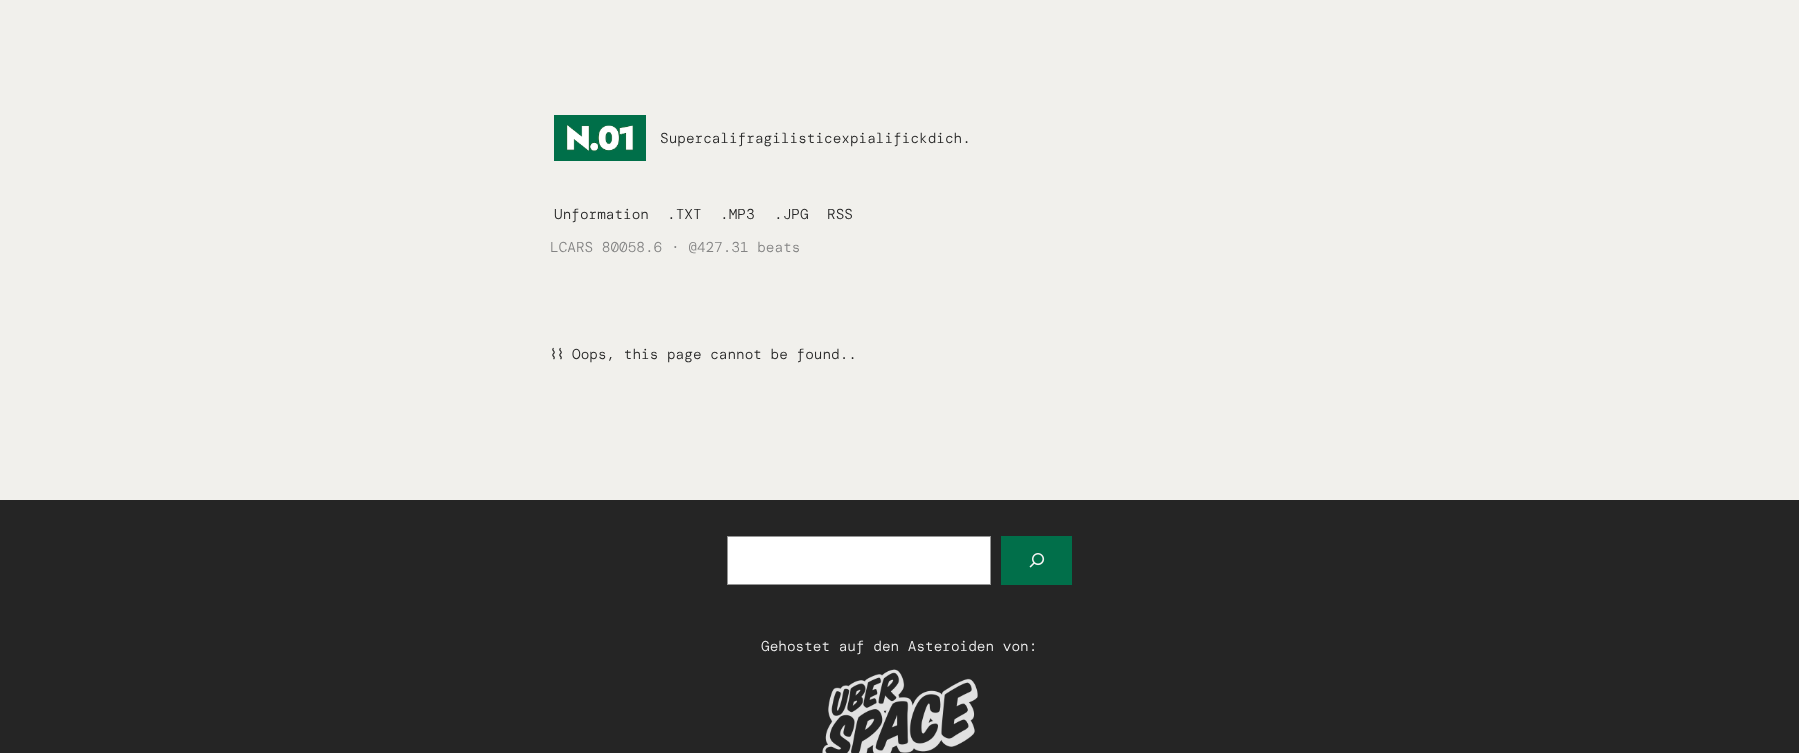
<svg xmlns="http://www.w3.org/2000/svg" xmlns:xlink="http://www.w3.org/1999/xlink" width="1799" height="753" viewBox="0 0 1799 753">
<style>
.cls-1{font:300 14.4px DM Mono;fill:#252525}
.cls-2{font:300 14.4px DM Mono;fill:#838383}
.cls-3{font:14.4px DejaVu Sans;fill:#252525}
.cls-4{font:300 14.4px DM Mono;fill:#f3f3f3}
</style>
<rect width="100%" height="100%" fill="#f1f0ec"/>
<image xlink:href="image0.png" x="554" y="115" width="92" height="46"/>
<rect fill="#252525" x="0" y="500" width="1799" height="253"/>
<rect fill="#ffffff" stroke="#949494" x="727.5" y="536.5" width="263" height="48"/>
<rect fill="#016f4a" x="1001" y="536" width="71" height="49"/>
<image xlink:href="image1.png" x="1029" y="553" width="16" height="15"/>
<image xlink:href="image2.png" x="822" y="669" width="156" height="84"/>
<text class="cls-1" x="660" y="143">Supercalifragilisticexpialifickdich.</text>
<text class="cls-1" x="554" y="219">Unformation</text>
<text class="cls-1" x="667" y="219">.TXT</text>
<text class="cls-1" x="720" y="219">.MP3</text>
<text class="cls-1" x="774" y="219">.JPG</text>
<text class="cls-1" x="827" y="219">RSS</text>
<text class="cls-2" x="550" y="252">LCARS 80058.6 · @427.31 beats</text>
<text class="cls-3" x="550" y="359">⌇⌇</text>
<text class="cls-1" x="572" y="359">Oops, this page cannot be found..</text>
<text class="cls-4" x="761" y="651">Gehostet auf den Asteroiden von:</text>
</svg>
